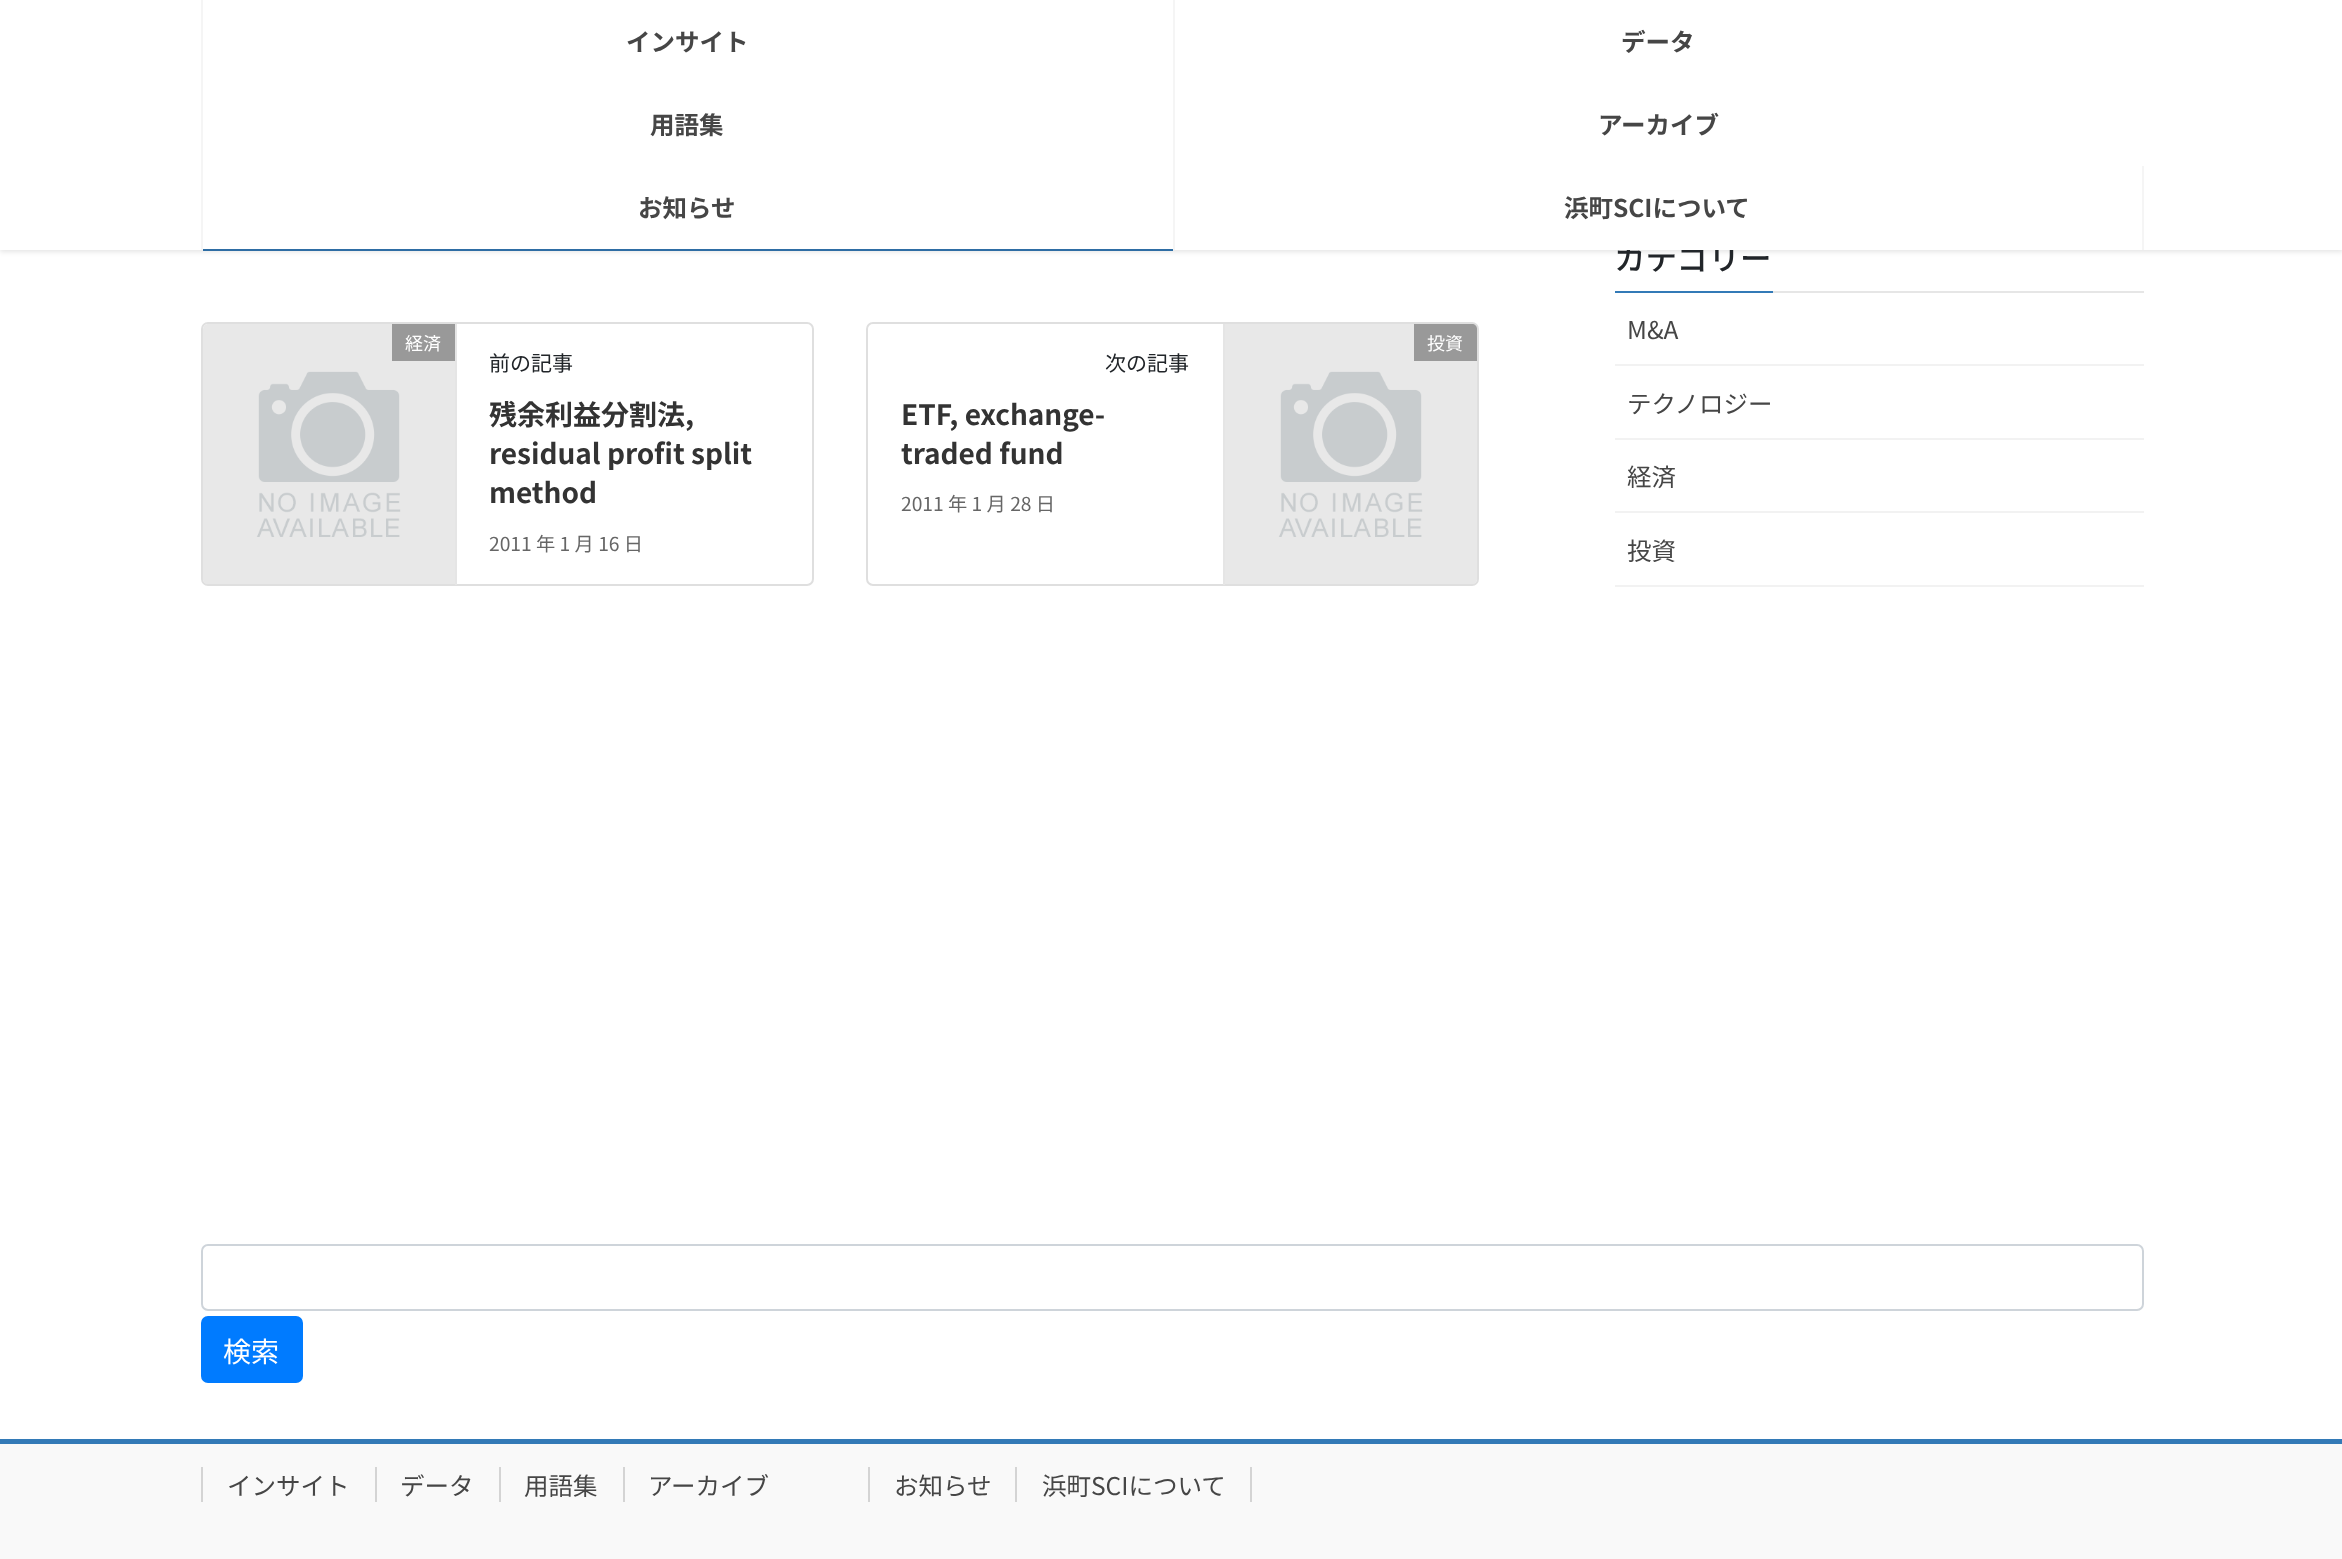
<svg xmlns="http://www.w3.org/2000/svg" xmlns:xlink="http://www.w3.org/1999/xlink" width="2342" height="1559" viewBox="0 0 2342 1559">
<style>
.cls-1{font:18px Noto Sans JP;fill:#ffffff}
.cls-2{font:21px Noto Sans JP;fill:#212529}
.cls-3{font:bold 28px Noto Sans JP;fill:#333333}
.cls-4{font:19.25px Noto Sans JP;fill:#666666}
.cls-5{font:500 31.5px Noto Sans JP;fill:#212529}
.cls-6{font:bold 24.5px Noto Sans JP;fill:#464646}
.cls-7{font:24.5px Noto Sans JP;fill:#464646}
.cls-8{font:28px Noto Sans JP;fill:#ffffff}
</style>
<rect width="100%" height="100%" fill="#ffffff"/>
<rect fill="#000000" fill-opacity="0.1" filter="blur(2.5px)" x="0" y="2" width="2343" height="250"/>
<rect fill="none" stroke="#dfdfdf" stroke-width="2" x="202" y="323" width="611" height="262" rx="6"/>
<image xlink:href="image0.png" x="203" y="324" width="252" height="260"/>
<rect fill="#e5e5e5" x="455" y="324" width="2" height="261"/>
<rect fill="#999999" x="392" y="324" width="63" height="37"/>
<rect fill="none" stroke="#dfdfdf" stroke-width="2" x="867" y="323" width="611" height="262" rx="6"/>
<image xlink:href="image1.png" x="1225" y="324" width="252" height="260"/>
<rect fill="#e5e5e5" x="1223" y="324" width="2" height="261"/>
<path fill="#999999" d="M1414 324H1472C1475 324 1477 326 1477 329V361H1414Z"/>
<rect fill="#e6e6e6" x="1773" y="291" width="371" height="2"/>
<rect fill="#337ab7" x="1615" y="291" width="158" height="2"/>
<rect fill="#f2f2f2" x="1615" y="364" width="529" height="2"/>
<rect fill="#f2f2f2" x="1615" y="438" width="529" height="2"/>
<rect fill="#f2f2f2" x="1615" y="511" width="529" height="2"/>
<rect fill="#f2f2f2" x="1615" y="585" width="529" height="2"/>
<rect fill="none" stroke="#ced4da" stroke-width="2" x="202" y="1245" width="1941" height="65" rx="6"/>
<rect fill="#007bff" stroke="#007bff" stroke-width="2" x="202" y="1317" width="100" height="65" rx="6"/>
<rect fill="#f9f9f9" x="0" y="1444" width="2342" height="115"/>
<rect fill="#337ab7" x="0" y="1439" width="2342" height="5"/>
<rect fill="#d4d4d4" x="201" y="1467" width="2" height="35"/>
<rect fill="#d4d4d4" x="375" y="1467" width="2" height="35"/>
<rect fill="#d4d4d4" x="499" y="1467" width="2" height="35"/>
<rect fill="#d4d4d4" x="623" y="1467" width="2" height="35"/>
<rect fill="#d4d4d4" x="868" y="1467" width="2" height="35"/>
<rect fill="#d4d4d4" x="1250" y="1467" width="2" height="35"/>
<rect fill="#d4d4d4" x="1015" y="1467" width="2" height="35"/>
<text class="cls-1" x="405" y="350">経済</text>
<text class="cls-2" x="489" y="371">前の記事</text>
<text class="cls-3"><tspan x="489" y="425">残余利益分割法,</tspan><tspan x="489" y="464">residual profit split</tspan><tspan x="489" y="503">method</tspan></text>
<text class="cls-4" x="489" y="551">2011 年 1 月 16 日</text>
<text class="cls-1" x="1427" y="350">投資</text>
<text class="cls-2" x="1105" y="371">次の記事</text>
<text class="cls-3"><tspan x="901" y="425">ETF, exchange-</tspan><tspan x="901" y="464">traded fund</tspan></text>
<text class="cls-4" x="901" y="511">2011 年 1 月 28 日</text>
<text class="cls-5" x="1614" y="270">カテゴリー</text>
<rect fill="#ffffff" x="0" y="0" width="2342" height="250"/>
<text class="cls-6" x="1564" y="217">浜町SCIについて</text>
<rect fill="#f5f5f5" x="2142" y="166" width="2" height="84"/>
<rect fill="#2e6da4" x="203" y="249" width="970" height="2"/>
<text class="cls-6" x="638" y="217">お知らせ</text>
<text class="cls-6" x="1598" y="134">アーカイブ</text>
<text class="cls-6" x="650" y="134">用語集</text>
<text class="cls-6" x="1621" y="51">データ</text>
<rect fill="#f5f5f5" x="1173" y="0" width="2" height="250"/>
<text class="cls-6" x="626" y="51">インサイト</text>
<rect fill="#f5f5f5" x="201" y="0" width="2" height="250"/>
<text class="cls-7" x="1627" y="339">M&amp;A</text>
<text class="cls-7" x="1627" y="413">テクノロジー</text>
<text class="cls-7" x="1627" y="486">経済</text>
<text class="cls-7" x="1627" y="560">投資</text>
<text class="cls-8" x="223" y="1362">検索</text>
<text class="cls-7" x="227" y="1495">インサイト</text>
<text class="cls-7" x="400" y="1495">データ</text>
<text class="cls-7" x="524" y="1495">用語集</text>
<text class="cls-7" x="648" y="1495">アーカイブ</text>
<text class="cls-7" x="894" y="1495">お知らせ</text>
<text class="cls-7" x="1042" y="1495">浜町SCIについて</text>
</svg>
